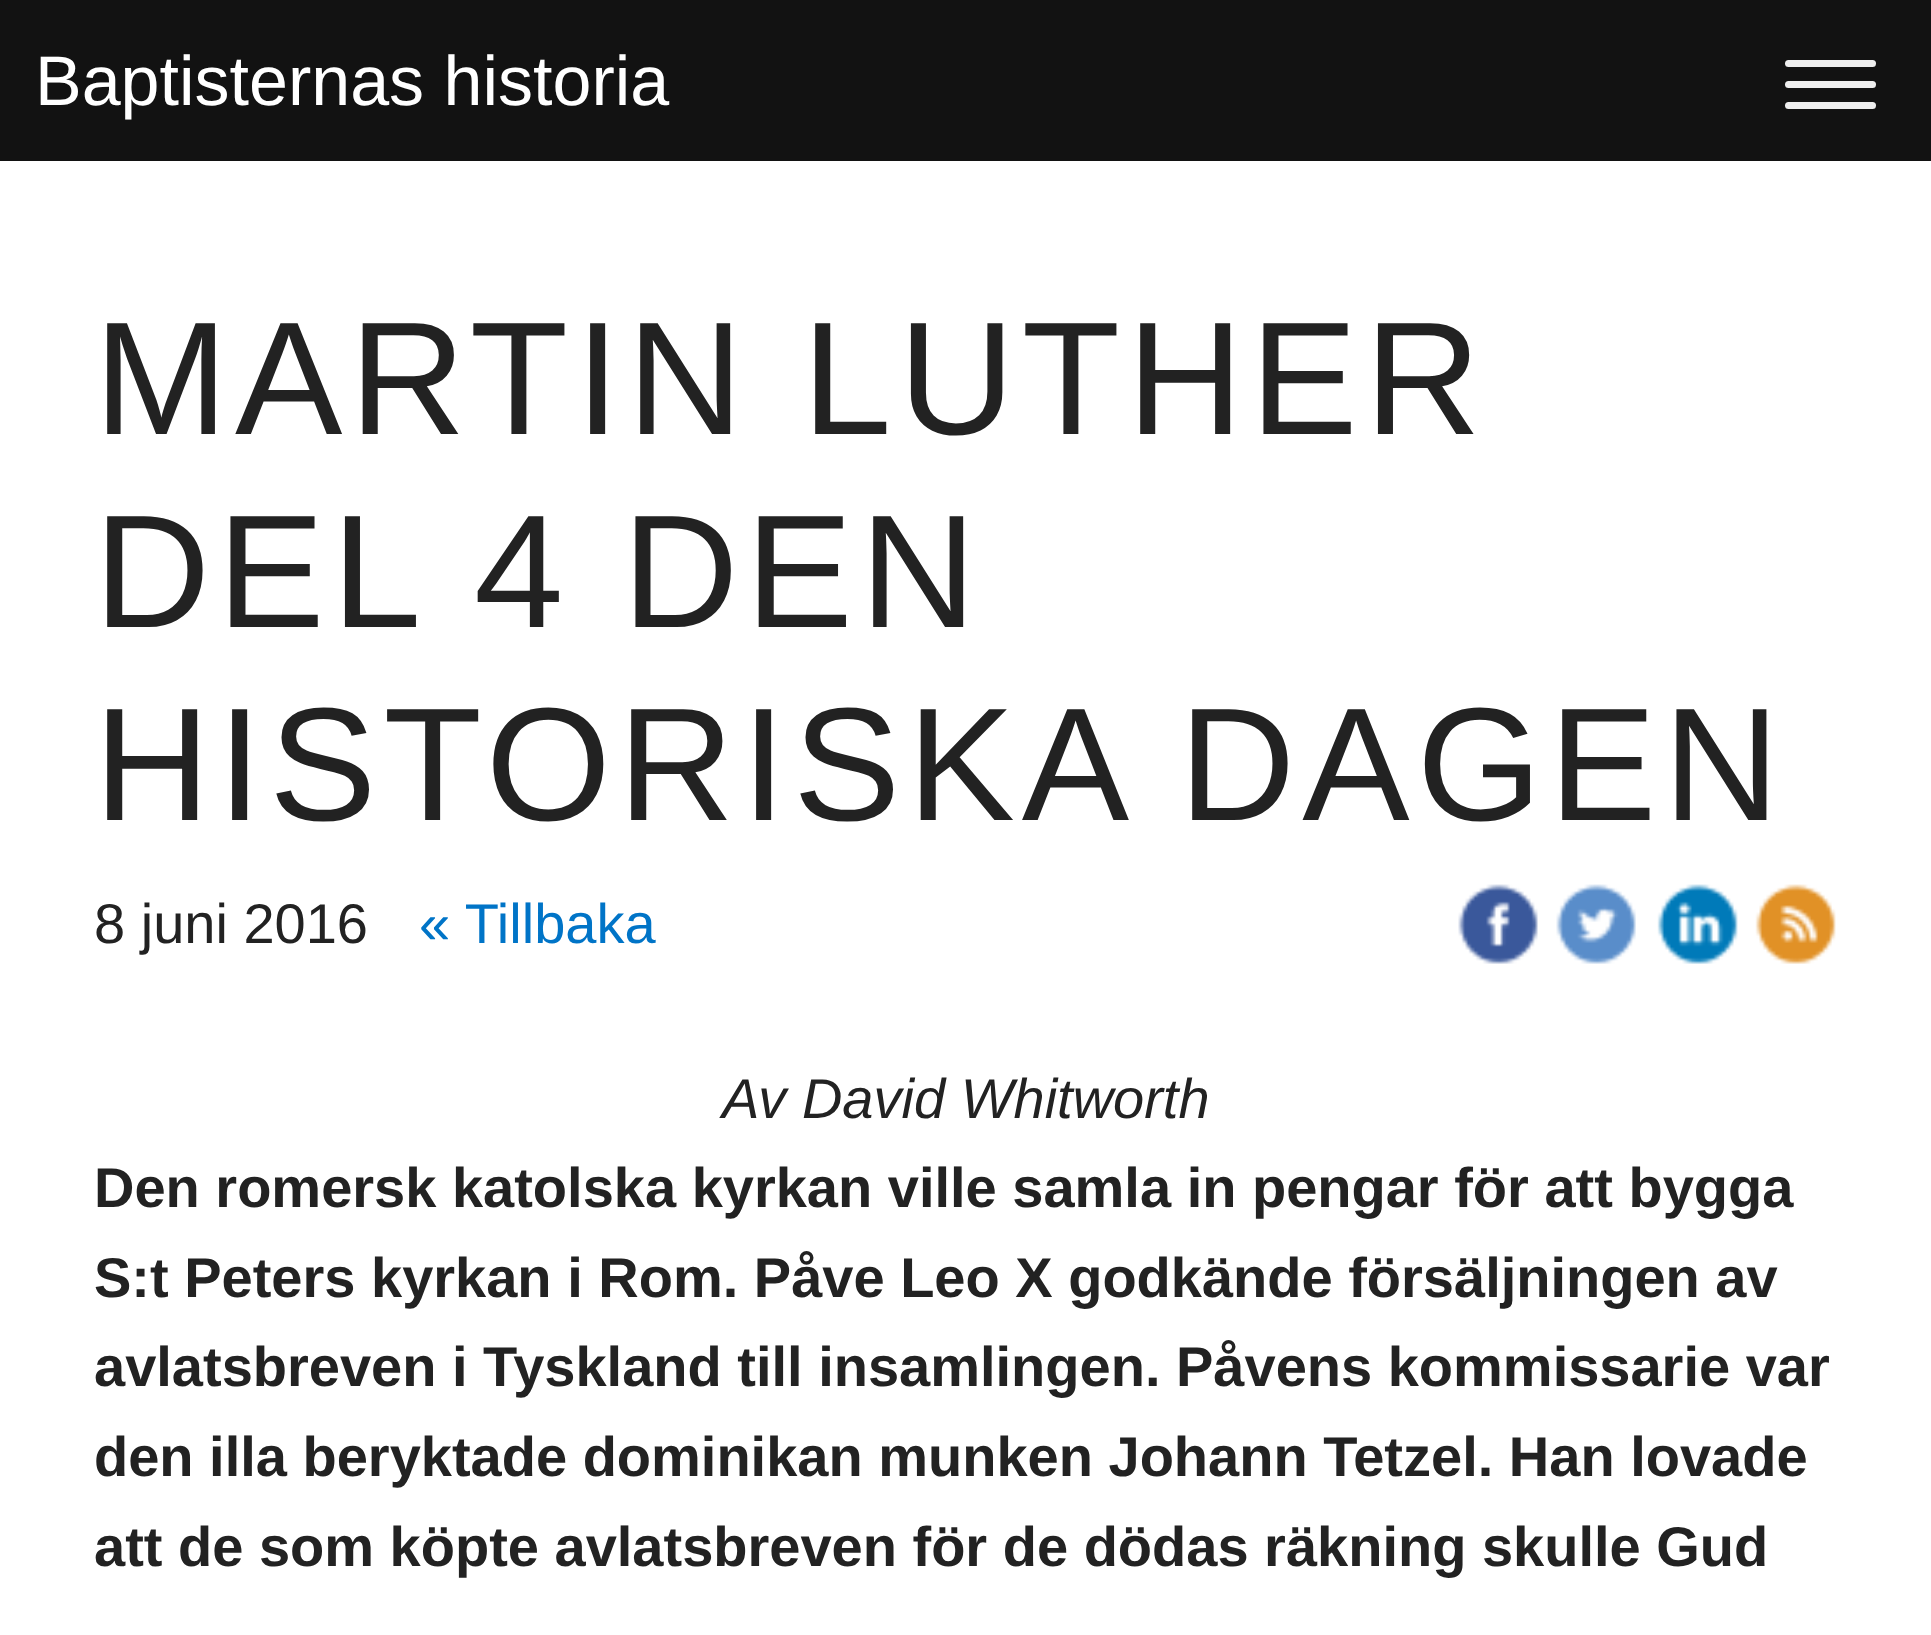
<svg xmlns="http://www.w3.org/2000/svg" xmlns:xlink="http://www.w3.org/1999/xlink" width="1931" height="1635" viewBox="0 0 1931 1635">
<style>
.cls-1{font:70px Liberation Sans;fill:#ffffff}
.cls-2{font:161px Liberation Sans;letter-spacing:7px;fill:#222222}
.cls-3{font:56px Liberation Sans;fill:#222222}
.cls-4{font:56px Liberation Sans;fill:#0074c7}
.cls-5{font:italic 56px Liberation Sans;fill:#222222}
.cls-6{font:bold 56px Liberation Sans;fill:#222222}
</style>
<rect width="100%" height="100%" fill="#ffffff"/>
<rect fill="#121212" x="0" y="0" width="1931" height="161"/>
<rect fill="#eeeeee" x="1785" y="60" width="91" height="7" rx="3.5"/>
<rect fill="#eeeeee" x="1785" y="81" width="91" height="7" rx="3.5"/>
<rect fill="#eeeeee" x="1785" y="102" width="91" height="7" rx="3.5"/>
<image xlink:href="image0.png" x="1458" y="884" width="80" height="80"/>
<image xlink:href="image1.png" x="1556" y="884" width="80" height="80"/>
<image xlink:href="image2.png" x="1657" y="884" width="81" height="80"/>
<image xlink:href="image3.png" x="1755" y="884" width="81" height="80"/>
<text class="cls-1" x="35" y="105">Baptisternas historia</text>
<text class="cls-2"><tspan x="94" y="434">MARTIN LUTHER</tspan><tspan x="94" y="627">DEL 4 DEN</tspan><tspan x="94" y="820">HISTORISKA DAGEN</tspan></text>
<text class="cls-3" x="94" y="943">8 juni 2016</text>
<text class="cls-4" x="419" y="943">« Tillbaka</text>
<text class="cls-5" x="722" y="1118">Av David Whitworth</text>
<text class="cls-6"><tspan x="94" y="1207">Den romersk katolska kyrkan ville samla in pengar för att bygga</tspan><tspan x="94" y="1297">S:t Peters kyrkan i Rom. Påve Leo X godkände försäljningen av</tspan><tspan x="94" y="1386">avlatsbreven i Tyskland till insamlingen. Påvens kommissarie var</tspan><tspan x="94" y="1476">den illa beryktade dominikan munken Johann Tetzel. Han lovade</tspan><tspan x="94" y="1566">att de som köpte avlatsbreven för de dödas räkning skulle Gud</tspan></text>
</svg>
